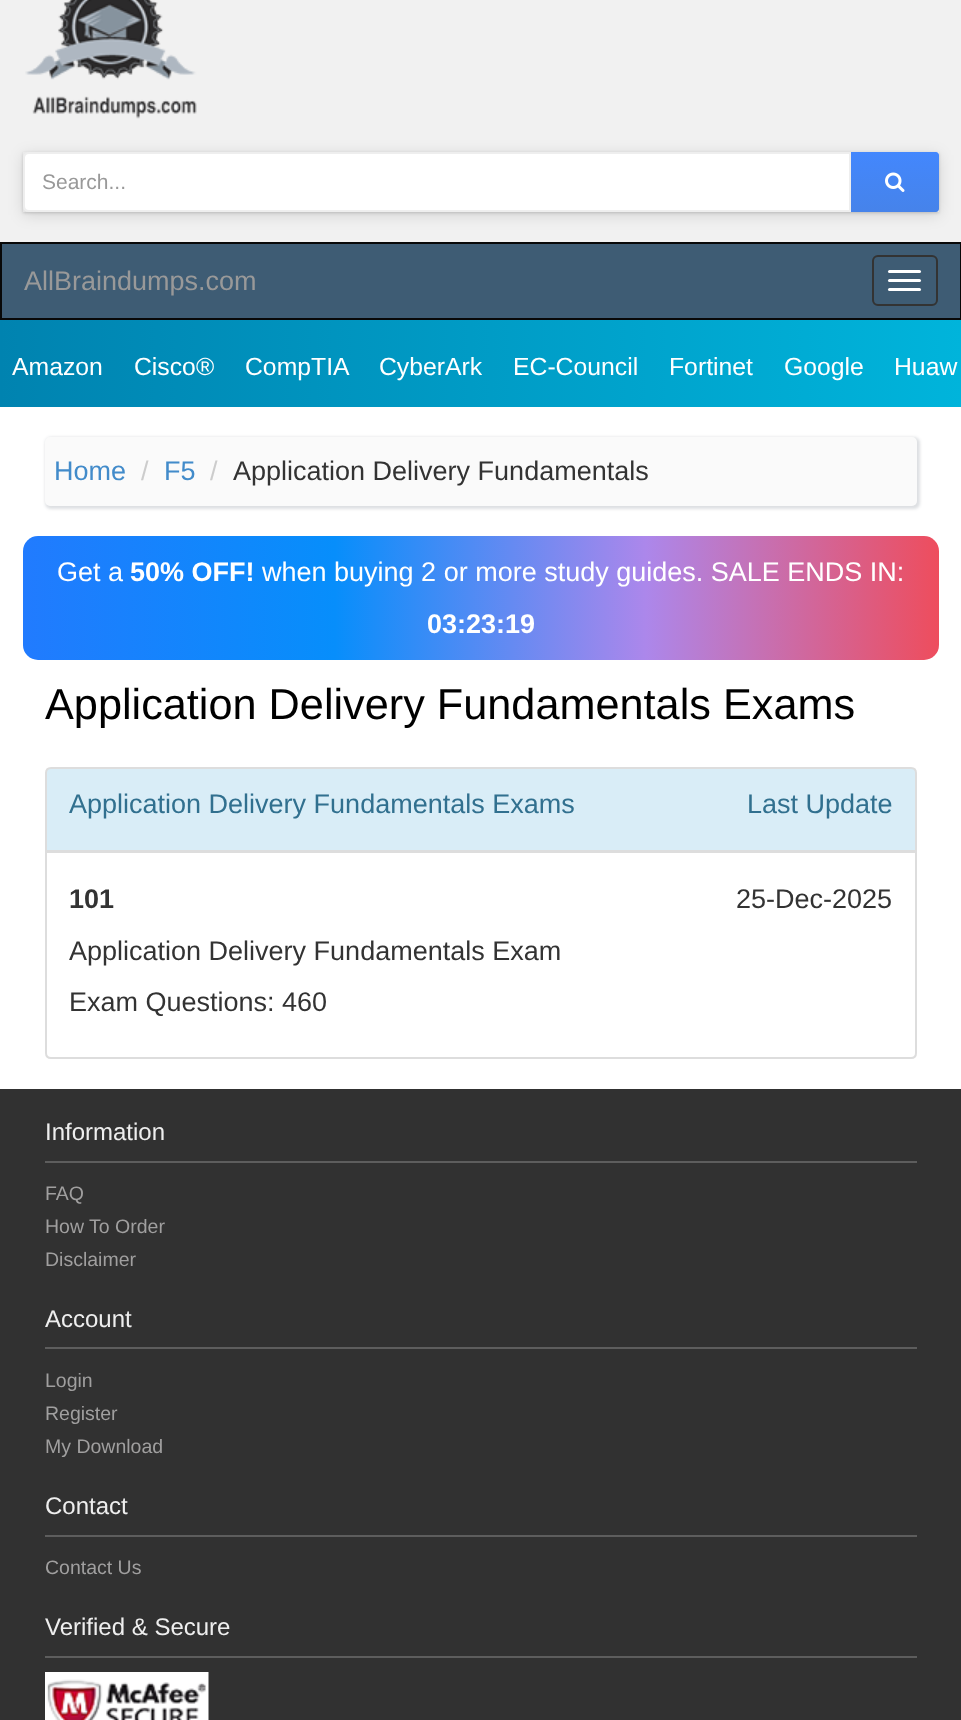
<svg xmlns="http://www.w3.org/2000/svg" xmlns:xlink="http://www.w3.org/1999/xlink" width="961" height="1720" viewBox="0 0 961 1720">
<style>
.cls-1{font:21px Liberation Sans;fill:#999999}
.cls-2{font:27px Liberation Sans;fill:#999999}
.cls-3{font:24.75px Liberation Sans;fill:#ffffff}
.cls-4{font:27px Liberation Sans;fill:#428bca}
.cls-5{font:27px Liberation Sans;fill:#cccccc}
.cls-6{font:27px Liberation Sans;fill:#333333}
.cls-7{font:27px Liberation Sans;fill:#ffffff}
.cls-8{font:bold 27px Liberation Sans;fill:#ffffff}
.cls-9{font:43.25px Liberation Sans;fill:#000000}
.cls-10{font:27px Liberation Sans;fill:#31708f}
.cls-11{font:bold 27px Liberation Sans;fill:#333333}
.cls-12{font:24px Liberation Sans;fill:#eeeeee}
.cls-13{font:19.5px Liberation Sans;fill:#a09f9f}
</style>
<defs>
<clipPath id="clip1"><path d="M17 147H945V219H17ZM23 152H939V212H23Z" clip-rule="evenodd"/></clipPath>
<linearGradient id="g1" gradientUnits="userSpaceOnUse" x1="894" y1="152" x2="894" y2="212"><stop offset="0" stop-color="#4387fd"/><stop offset="1" stop-color="#4683ea"/></linearGradient>
<linearGradient id="g2" gradientUnits="userSpaceOnUse" x1="0" y1="363" x2="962" y2="363"><stop offset="0" stop-color="#0083b0"/><stop offset="1" stop-color="#00b4db"/></linearGradient>
<linearGradient id="g3" gradientUnits="userSpaceOnUse" x1="23" y1="598" x2="939" y2="598"><stop offset="0" stop-color="#217bfe"/><stop offset="0.34" stop-color="#078efb"/><stop offset="0.68" stop-color="#ac87eb"/><stop offset="1" stop-color="#ee4d5d"/></linearGradient>
</defs>
<rect width="100%" height="100%" fill="#ffffff"/>
<rect fill="#f1f1f1" x="0" y="0" width="961" height="242"/>
<image xlink:href="image0.png" x="25" y="0" width="172" height="119"/>
<rect fill="#000000" fill-opacity="0.12" filter="blur(7.5px)" x="23" y="155" width="916" height="60"/>
<g clip-path="url(#clip1)">
<rect fill="#000000" fill-opacity="0.16" filter="blur(1.5px)" x="23" y="153" width="916" height="60"/>
</g>
<path fill="url(#g1)" d="M849 152H936C937.5 152 939 153.5 939 155V209C939 210.5 937.5 212 936 212H849Z"/>
<path fill="#ffffff" stroke="#eeeeee" stroke-width="2" d="M29 153H850V211H29C26 211 24 209 24 206V158C24 155 26 153 29 153Z"/>
<image xlink:href="image1.png" x="885" y="172" width="20" height="20"/>
<rect fill="#3e5c74" stroke="#080808" stroke-width="2" x="1" y="243" width="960" height="76"/>
<rect fill="none" stroke="#333333" stroke-width="2" x="873" y="256" width="64" height="49" rx="5"/>
<rect fill="#ffffff" x="888" y="270" width="33" height="3" rx="1.5"/>
<rect fill="#ffffff" x="888" y="279" width="33" height="3" rx="1.5"/>
<rect fill="#ffffff" x="888" y="288" width="33" height="3" rx="1.5"/>
<rect fill="url(#g2)" x="0" y="320" width="961" height="87"/>
<rect fill="#1b2b3a" fill-opacity="0.15" filter="blur(1.5px)" x="45" y="437" width="875" height="72" rx="6"/>
<rect fill="#fafafa" x="45" y="437" width="872" height="69" rx="5"/>
<rect fill="url(#g3)" x="23" y="536" width="916" height="124" rx="15"/>
<path fill="#d9edf7" stroke="#dddddd" stroke-width="2" d="M51 768H911C914 768 916 770 916 773V851H46V773C46 770 48 768 51 768Z"/>
<path fill="#ffffff" stroke="#dddddd" stroke-width="2" d="M46 852H916V1053C916 1056 914 1058 911 1058H51C48 1058 46 1056 46 1053Z"/>
<rect fill="#313131" x="0" y="1089" width="961" height="631"/>
<rect fill="#5d5d5d" x="45" y="1161" width="872" height="2"/>
<rect fill="#5d5d5d" x="45" y="1347" width="872" height="2"/>
<rect fill="#5d5d5d" x="45" y="1535" width="872" height="2"/>
<rect fill="#5d5d5d" x="45" y="1656" width="872" height="2"/>
<image xlink:href="image2.png" x="45" y="1672" width="164" height="48"/>
<text class="cls-1" x="42" y="189">Search...</text>
<text class="cls-2" x="24" y="290">AllBraindumps.com</text>
<text class="cls-3" x="12" y="375">Amazon</text>
<text class="cls-3" x="134" y="375">Cisco®</text>
<text class="cls-3" x="245" y="375">CompTIA</text>
<text class="cls-3" x="379" y="375">CyberArk</text>
<text class="cls-3" x="513" y="375">EC-Council</text>
<text class="cls-3" x="669" y="375">Fortinet</text>
<text class="cls-3" x="784" y="375">Google</text>
<text class="cls-3" x="894" y="375">Huaw</text>
<text class="cls-4" x="54" y="480">Home</text>
<text class="cls-5" x="141" y="480">/</text>
<text class="cls-4" x="164" y="480">F5</text>
<text class="cls-5" x="210" y="480">/</text>
<text class="cls-6" x="233" y="480">Application Delivery Fundamentals</text>
<text class="cls-7" x="57" y="581">Get a</text>
<text class="cls-8" x="130" y="581">50% OFF!</text>
<text class="cls-7" x="262" y="581">when buying 2 or more study guides. SALE ENDS IN:</text>
<text class="cls-8" x="427" y="633">03:23:19</text>
<text class="cls-9" x="45" y="719">Application Delivery Fundamentals Exams</text>
<text class="cls-10" x="69" y="813">Application Delivery Fundamentals Exams</text>
<text class="cls-10" x="747" y="813">Last Update</text>
<text class="cls-11" x="69" y="908">101</text>
<text class="cls-6" x="736" y="908">25-Dec-2025</text>
<text class="cls-6"><tspan x="69" y="960">Application Delivery Fundamentals Exam</tspan><tspan x="69" y="1011">Exam Questions: 460</tspan></text>
<text class="cls-12" x="45" y="1140">Information</text>
<text class="cls-13"><tspan x="45" y="1200">FAQ</tspan><tspan x="45" y="1233">How To Order</tspan><tspan x="45" y="1266">Disclaimer</tspan></text>
<text class="cls-12" x="45" y="1327">Account</text>
<text class="cls-13"><tspan x="45" y="1387">Login</tspan><tspan x="45" y="1420">Register</tspan><tspan x="45" y="1453">My Download</tspan></text>
<text class="cls-12" x="45" y="1514">Contact</text>
<text class="cls-13" x="45" y="1574">Contact Us</text>
<text class="cls-12" x="45" y="1635">Verified &amp; Secure</text>
</svg>
